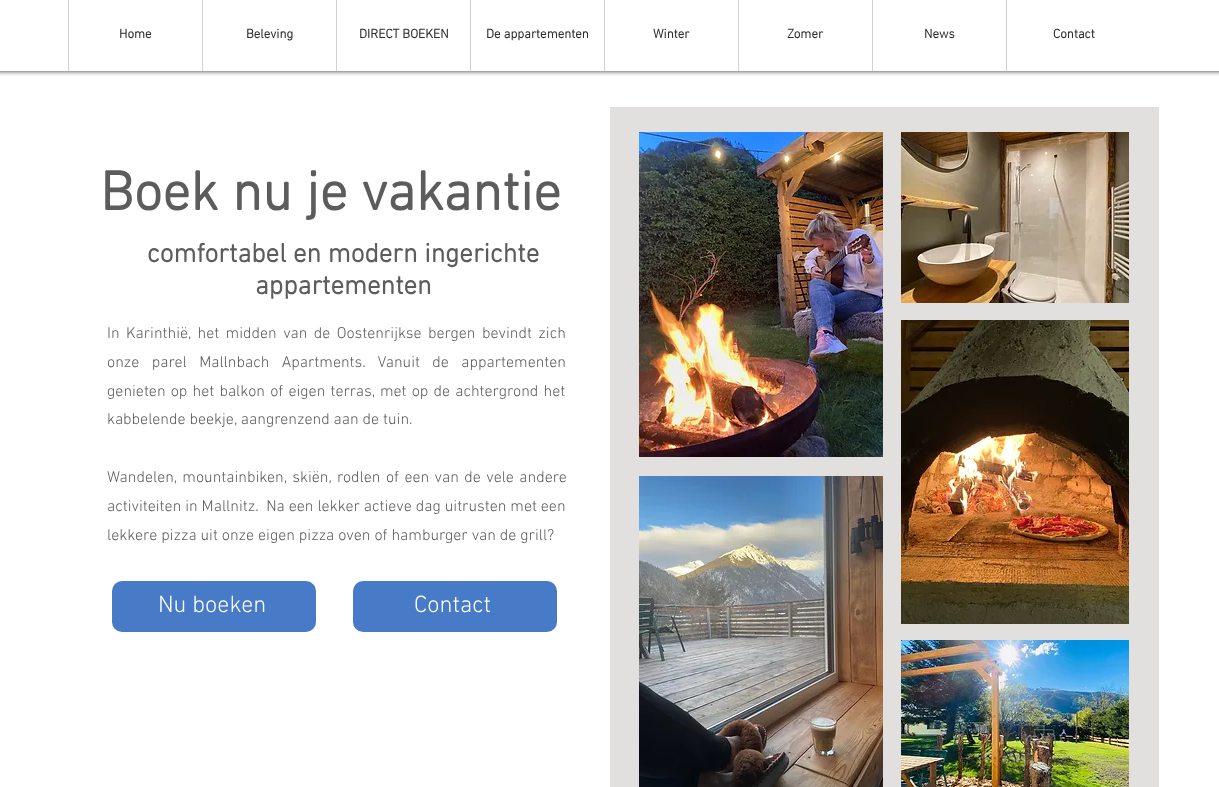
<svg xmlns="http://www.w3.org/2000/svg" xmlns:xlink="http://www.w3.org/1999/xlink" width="1219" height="787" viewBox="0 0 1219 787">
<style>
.cls-1{font:bold 13px 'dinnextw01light';fill:#2e2e2e}
.cls-2{font:bold 56px 'dinnextw01light';fill:#5c5c5c}
.cls-3{font:bold 27px 'dinnextw01light';fill:#5c5c5c}
.cls-4{font:300 16px 'dinnextw01light';fill:#5c5c5c}
.cls-5{font:300 24px 'dinnextw01light';fill:#ffffff}
</style>
<defs>
<clipPath id="clip1"><rect x="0" y="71" width="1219" height="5"/></clipPath>
</defs>
<rect width="100%" height="100%" fill="#ffffff"/>
<g clip-path="url(#clip1)">
<rect fill="#000000" fill-opacity="0.6" filter="blur(2px)" x="-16" y="1" width="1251" height="71" rx="10"/>
</g>
<rect fill="#d1d1d1" x="68" y="0" width="1" height="71"/>
<rect fill="#d1d1d1" x="202" y="0" width="1" height="71"/>
<rect fill="#d1d1d1" x="336" y="0" width="1" height="71"/>
<rect fill="#d1d1d1" x="470" y="0" width="1" height="71"/>
<rect fill="#d1d1d1" x="604" y="0" width="1" height="71"/>
<rect fill="#d1d1d1" x="738" y="0" width="1" height="71"/>
<rect fill="#d1d1d1" x="872" y="0" width="1" height="71"/>
<rect fill="#d1d1d1" x="1006" y="0" width="1" height="71"/>
<rect fill="#487bc7" x="112" y="581" width="204" height="51" rx="10"/>
<rect fill="#487bc7" x="353" y="581" width="204" height="51" rx="10"/>
<rect fill="#e2dfdf" x="610" y="107" width="549" height="680"/>
<image xlink:href="image0.png" x="639" y="132" width="244" height="325"/>
<image xlink:href="image1.png" x="901" y="132" width="228" height="171"/>
<image xlink:href="image2.png" x="639" y="476" width="244" height="311"/>
<image xlink:href="image3.png" x="901" y="320" width="228" height="304"/>
<image xlink:href="image4.png" x="901" y="640" width="228" height="147"/>
<text class="cls-1" x="119" y="38">Home</text>
<text class="cls-1" x="246" y="38">Beleving</text>
<text class="cls-1" x="359" y="38">DIRECT BOEKEN</text>
<text class="cls-1" x="486" y="38">De appartementen</text>
<text class="cls-1" x="653" y="38">Winter</text>
<text class="cls-1" x="787" y="38">Zomer</text>
<text class="cls-1" x="924" y="38">News</text>
<text class="cls-1" x="1053" y="38">Contact</text>
<text class="cls-2" x="100" y="210">Boek nu je vakantie</text>
<text class="cls-3" x="147" y="262">comfortabel en modern ingerichte</text>
<text class="cls-3" x="255" y="294">appartementen</text>
<text class="cls-4"><tspan x="107" y="338" word-spacing="2.5">In Karinthië, het midden van de Oostenrijkse bergen bevindt zich</tspan><tspan x="107" y="367" word-spacing="8.5">onze parel Mallnbach Apartments. Vanuit de appartementen</tspan><tspan x="107" y="396" word-spacing="1.25">genieten op het balkon of eigen terras, met op de achtergrond het</tspan><tspan x="107" y="424">kabbelende beekje, aangrenzend aan de tuin.</tspan></text>
<text class="cls-4" xml:space="preserve"><tspan x="107" y="482" word-spacing="1.5">Wandelen, mountainbiken, skiën, rodlen of een van de vele andere</tspan><tspan x="107" y="511">activiteiten in Mallnitz.  Na een lekker actieve dag uitrusten met een</tspan><tspan x="107" y="540">lekkere pizza uit onze eigen pizza oven of hamburger van de grill?</tspan></text>
<text class="cls-5" x="158" y="612">Nu boeken</text>
<text class="cls-5" x="414" y="612">Contact</text>
</svg>
